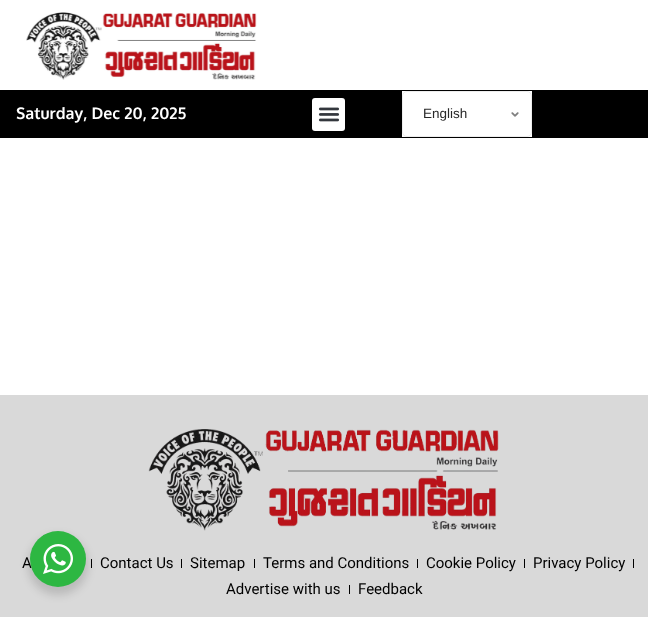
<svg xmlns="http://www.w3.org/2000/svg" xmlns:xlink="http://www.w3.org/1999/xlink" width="648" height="617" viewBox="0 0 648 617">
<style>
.cls-1{font:bold 16px Oxygen;fill:#ffffff}
.cls-2{font:13.5px Liberation Sans;fill:#282828}
.cls-3{font:15px Roboto;fill:#000000}
</style>
<rect width="100%" height="100%" fill="#ffffff"/>
<image xlink:href="image0.png" x="26" y="12" width="231" height="68"/>
<rect fill="#000000" x="0" y="90" width="648" height="48"/>
<rect fill="#ffffff" x="312" y="98" width="33" height="33" rx="3"/>
<image xlink:href="image1.png" x="318" y="107" width="22" height="15"/>
<rect fill="#ffffff" x="402" y="91" width="130" height="46"/>
<image xlink:href="image2.png" x="511" y="112" width="8" height="5"/>
<rect fill="none" stroke="#ededed" x="402.5" y="91.5" width="129" height="45" rx="4.5"/>
<rect fill="#d9d9d9" x="0" y="395" width="648" height="222"/>
<rect fill="#000000" x="91" y="559" width="1" height="9"/>
<rect fill="#000000" fill-opacity="0.14" filter="blur(4px)" x="28" y="535" width="60" height="60" rx="30"/>
<image xlink:href="image4.png" x="148" y="429" width="351" height="102"/>
<rect fill="#000000" x="181" y="559" width="1" height="9"/>
<rect fill="#000000" x="254" y="559" width="1" height="9"/>
<rect fill="#000000" x="417" y="559" width="1" height="9"/>
<rect fill="#000000" x="524" y="559" width="1" height="9"/>
<rect fill="#000000" x="633" y="559" width="1" height="9"/>
<rect fill="#000000" x="349" y="585" width="1" height="9"/>
<text class="cls-1" x="16" y="119">Saturday, Dec 20, 2025</text>
<text class="cls-2" x="423" y="118">English</text>
<text class="cls-3" x="22" y="568">A</text>
<circle fill="#2db742" cx="58" cy="559" r="28"/>
<image xlink:href="image3.png" x="43" y="544" width="30" height="30"/>
<text class="cls-3" x="100" y="568">Contact Us</text>
<text class="cls-3" x="190" y="568">Sitemap</text>
<text class="cls-3" x="263" y="568">Terms and Conditions</text>
<text class="cls-3" x="426" y="568">Cookie Policy</text>
<text class="cls-3" x="533" y="568">Privacy Policy</text>
<text class="cls-3" x="226" y="594">Advertise with us</text>
<text class="cls-3" x="358" y="594">Feedback</text>
</svg>
